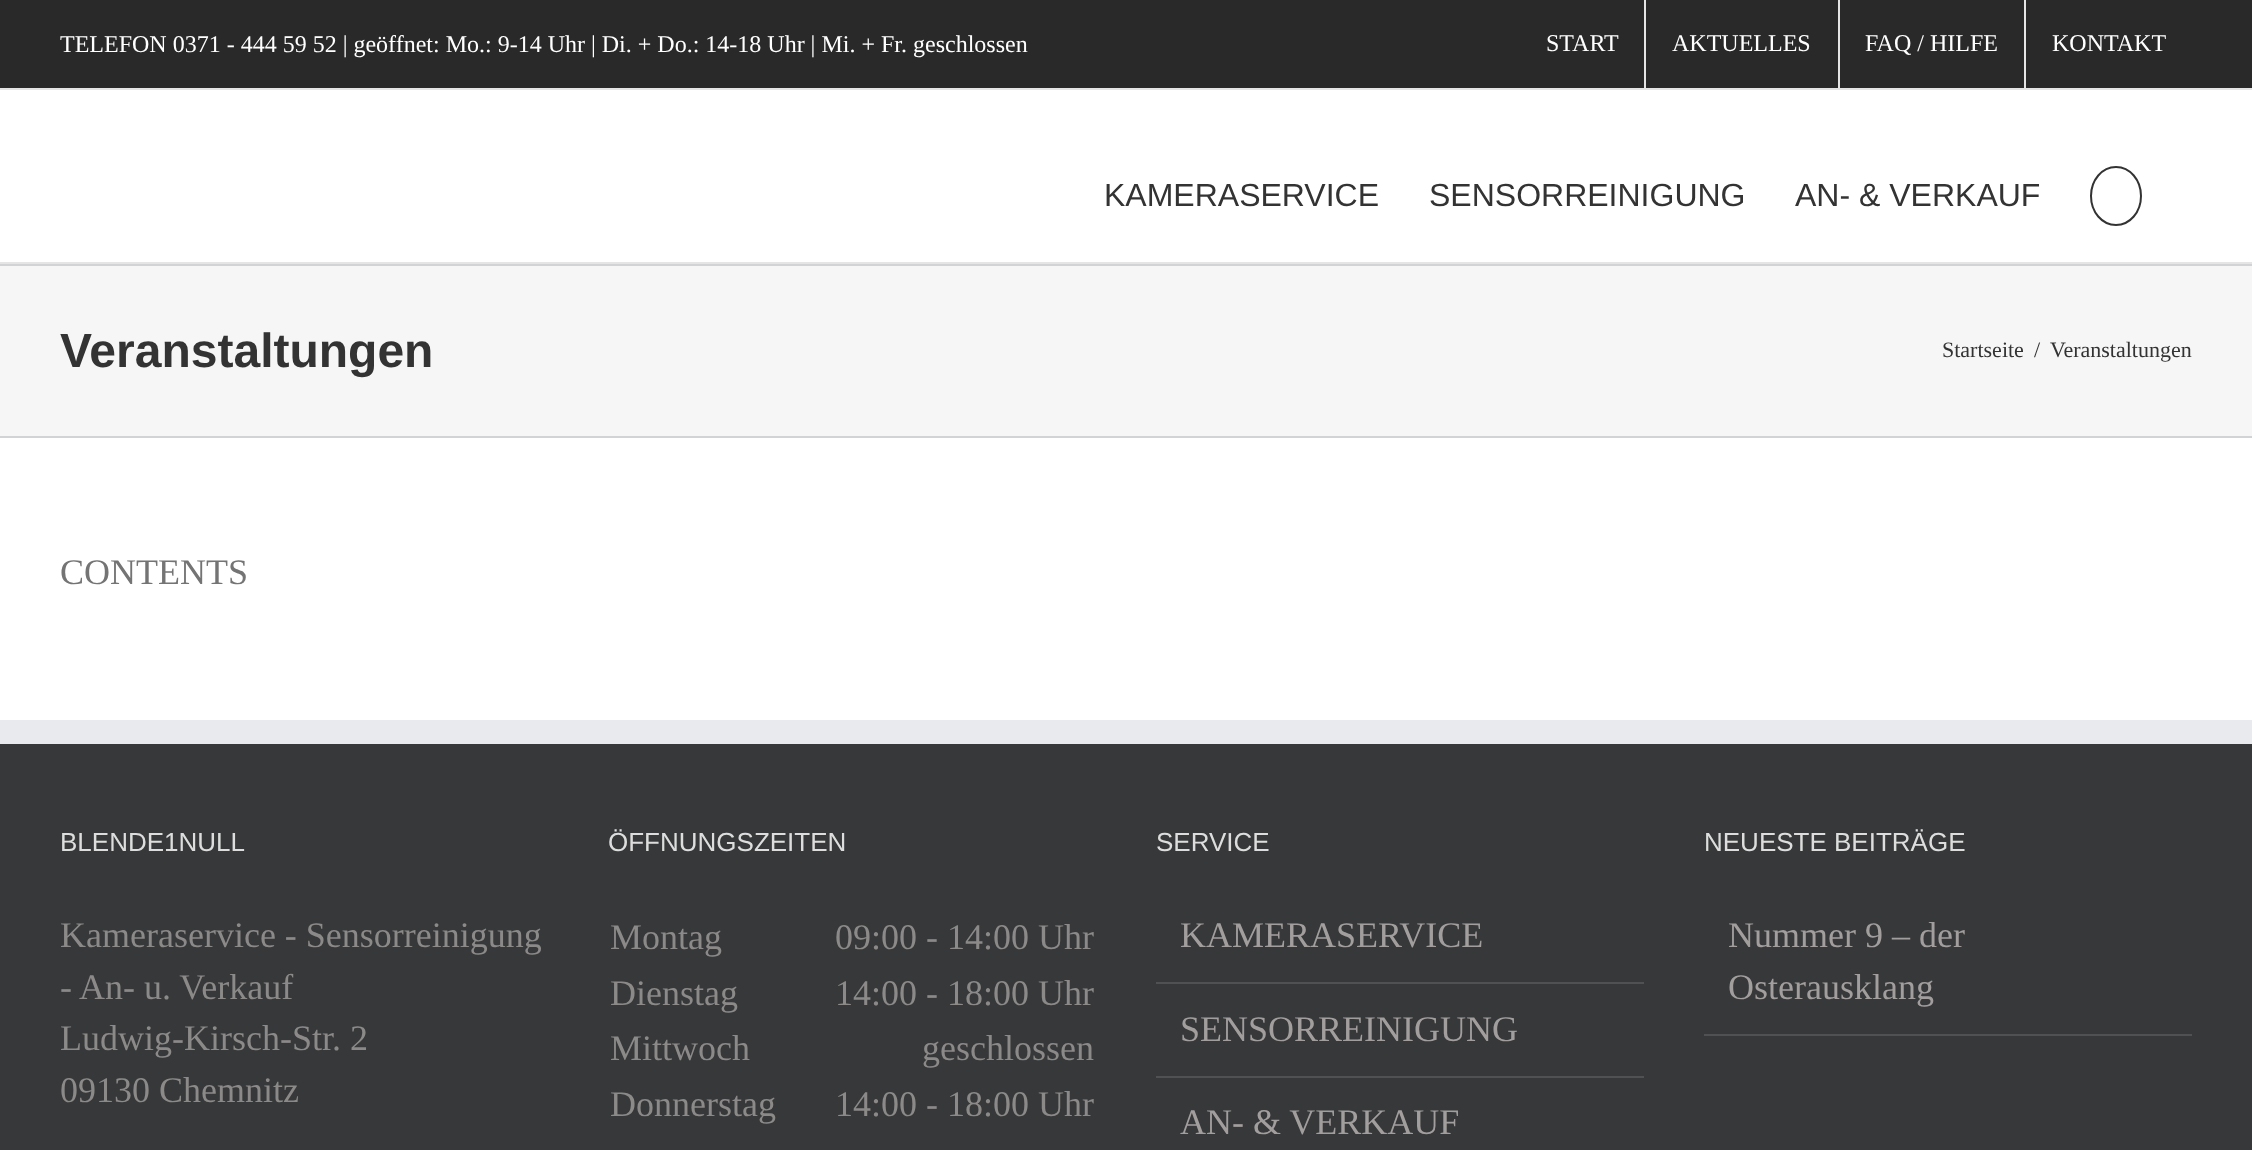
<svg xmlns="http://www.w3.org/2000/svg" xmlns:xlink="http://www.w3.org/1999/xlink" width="2252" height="1150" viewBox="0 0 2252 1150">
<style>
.cls-1{font:24px Liberation Serif;fill:#ffffff}
.cls-2{font:32px Liberation Sans;fill:#333333}
.cls-3{font:bold 48px Liberation Sans;fill:#333333}
.cls-4{font:22px Liberation Serif;fill:#333333}
.cls-5{font:36px Liberation Serif;fill:#747474}
.cls-6{font:26px Liberation Sans;fill:#dddddd}
.cls-7{font:36px Liberation Serif;fill:#8c8989}
.cls-8{font:36px Liberation Serif;fill:#a39e9e}
</style>
<rect width="100%" height="100%" fill="#ffffff"/>
<rect fill="#29292a" x="0" y="0" width="2252" height="88"/>
<rect fill="#e5e5e5" x="0" y="88" width="2252" height="2"/>
<rect fill="#e5e5e5" x="1644" y="0" width="2" height="88"/>
<rect fill="#e5e5e5" x="1838" y="0" width="2" height="88"/>
<rect fill="#e5e5e5" x="2024" y="0" width="2" height="88"/>
<rect fill="#e5e5e5" x="0" y="262" width="2252" height="2"/>
<path fill="none" stroke="#333333" stroke-width="2" d="M2116 167C2130 167 2141 180 2141 196C2141 212 2130 225 2116 225C2102 225 2091 212 2091 196C2091 180 2102 167 2116 167Z"/>
<rect fill="#f6f6f6" x="0" y="266" width="2252" height="170"/>
<rect fill="#d2d3d4" x="0" y="264" width="2252" height="2"/>
<rect fill="#d2d3d4" x="0" y="436" width="2252" height="2"/>
<rect fill="#363839" x="0" y="744" width="2252" height="406"/>
<rect fill="#e9eaee" x="0" y="720" width="2252" height="24"/>
<rect fill="#505152" x="1156" y="982" width="488" height="2"/>
<rect fill="#505152" x="1156" y="1076" width="488" height="2"/>
<rect fill="#505152" x="1704" y="1034" width="488" height="2"/>
<text class="cls-1" x="60" y="52">TELEFON 0371 - 444 59 52 | geöffnet: Mo.: 9-14 Uhr | Di. + Do.: 14-18 Uhr | Mi. + Fr. geschlossen</text>
<text class="cls-1" x="1546" y="51">START</text>
<text class="cls-1" x="1672" y="51">AKTUELLES</text>
<text class="cls-1" x="1865" y="51">FAQ / HILFE</text>
<text class="cls-1" x="2052" y="51">KONTAKT</text>
<text class="cls-2" x="1104" y="206">KAMERASERVICE</text>
<text class="cls-2" x="1429" y="206">SENSORREINIGUNG</text>
<text class="cls-2" x="1795" y="206">AN- &amp; VERKAUF</text>
<text class="cls-3" x="60" y="367">Veranstaltungen</text>
<text class="cls-4" x="1942" y="357">Startseite</text>
<text class="cls-4" x="2034" y="357">/</text>
<text class="cls-4" x="2050" y="357">Veranstaltungen</text>
<text class="cls-5" x="60" y="584">CONTENTS</text>
<text class="cls-6" x="60" y="851">BLENDE1NULL</text>
<text class="cls-7"><tspan x="60" y="947">Kameraservice - Sensorreinigung</tspan><tspan x="60" y="999">- An- u. Verkauf</tspan><tspan x="60" y="1050">Ludwig-Kirsch-Str. 2</tspan><tspan x="60" y="1102">09130 Chemnitz</tspan></text>
<text class="cls-6" x="608" y="851">ÖFFNUNGSZEITEN</text>
<text class="cls-7" x="610" y="949">Montag</text>
<text class="cls-7" x="835" y="949">09:00 - 14:00 Uhr</text>
<text class="cls-7" x="610" y="1005">Dienstag</text>
<text class="cls-7" x="835" y="1005">14:00 - 18:00 Uhr</text>
<text class="cls-7" x="610" y="1060">Mittwoch</text>
<text class="cls-7" x="922" y="1060">geschlossen</text>
<text class="cls-7" x="610" y="1116">Donnerstag</text>
<text class="cls-7" x="835" y="1116">14:00 - 18:00 Uhr</text>
<text class="cls-6" x="1156" y="851">SERVICE</text>
<text class="cls-8" x="1180" y="947">KAMERASERVICE</text>
<text class="cls-8" x="1180" y="1041">SENSORREINIGUNG</text>
<text class="cls-8" x="1180" y="1134">AN- &amp; VERKAUF</text>
<text class="cls-6" x="1704" y="851">NEUESTE BEITRÄGE</text>
<text class="cls-8"><tspan x="1728" y="947">Nummer 9 – der</tspan><tspan x="1728" y="999">Osterausklang</tspan></text>
</svg>
